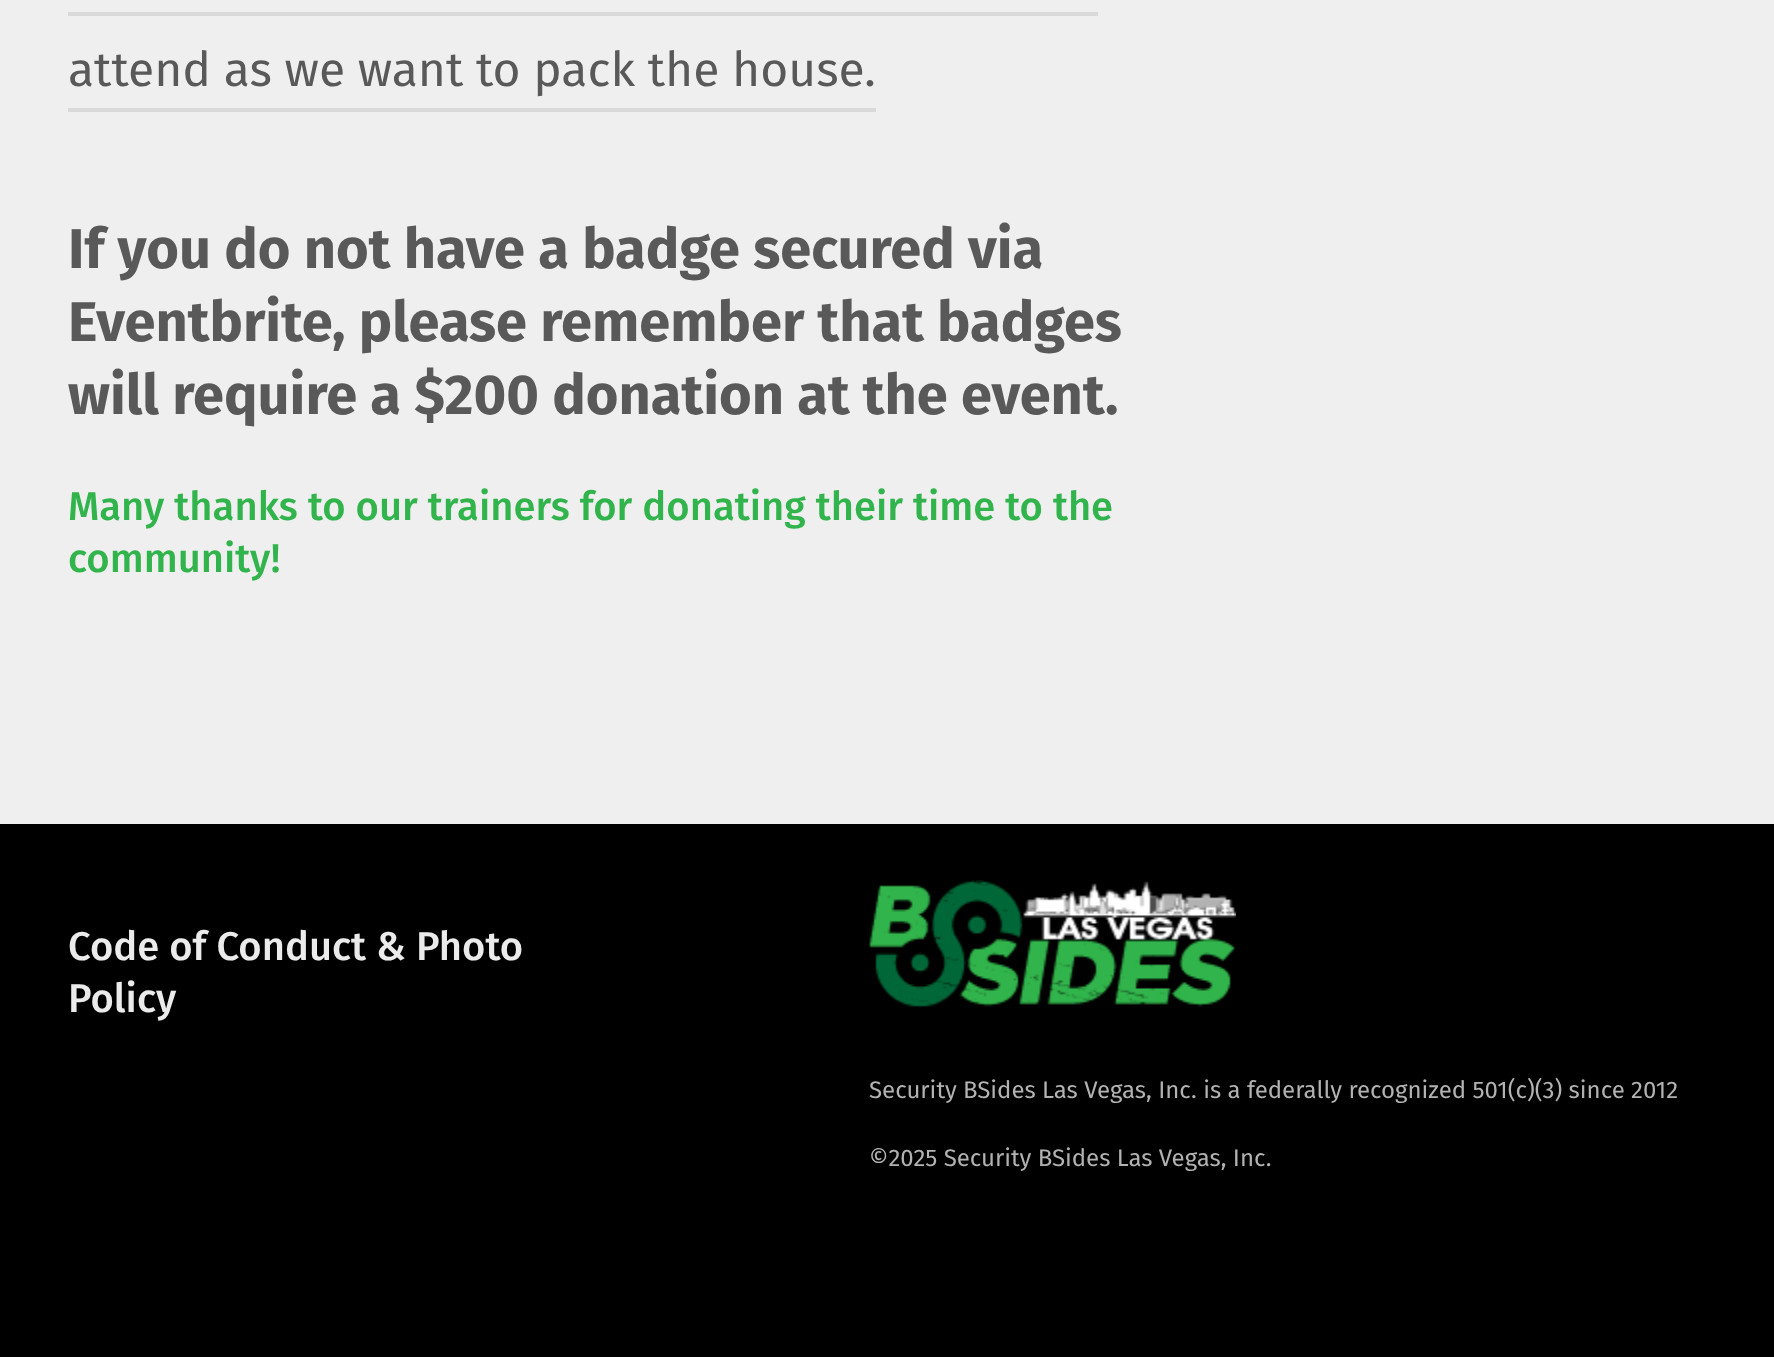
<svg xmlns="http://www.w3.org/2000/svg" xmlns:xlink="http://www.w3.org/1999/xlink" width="1774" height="1357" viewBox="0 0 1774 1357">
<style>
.cls-1{font:48px Fira Sans;fill:#595959}
.cls-2{font:bold 56px Fira Sans;fill:#595959}
.cls-3{font:500 40px Fira Sans;fill:#31b44b}
.cls-4{font:500 40px Fira Sans;fill:#ebebeb}
.cls-5{font:24px Fira Sans;fill:#b2b2b2}
</style>
<rect width="100%" height="100%" fill="#efefef"/>
<rect fill="#d9d9d9" x="68" y="12" width="1030" height="4"/>
<rect fill="#d9d9d9" x="68" y="108" width="808" height="4"/>
<rect fill="#000000" x="0" y="824" width="1774" height="533"/>
<image xlink:href="image0.png" x="869" y="880" width="367" height="128"/>
<text class="cls-1" x="68" y="86">attend as we want to pack the house.</text>
<text class="cls-2"><tspan x="68" y="268">If you do not have a badge secured via</tspan><tspan x="68" y="341">Eventbrite, please remember that badges</tspan><tspan x="68" y="414">will require a $200 donation at the event.</tspan></text>
<text class="cls-3"><tspan x="68" y="520">Many thanks to our trainers for donating their time to the</tspan><tspan x="68" y="572">community!</tspan></text>
<text class="cls-4"><tspan x="68" y="960">Code of Conduct &amp; Photo</tspan><tspan x="68" y="1012">Policy</tspan></text>
<text class="cls-5" x="869" y="1098">Security BSides Las Vegas, Inc. is a federally recognized 501(c)(3) since 2012</text>
<text class="cls-5" x="869" y="1166">©2025 Security BSides Las Vegas, Inc.</text>
</svg>
